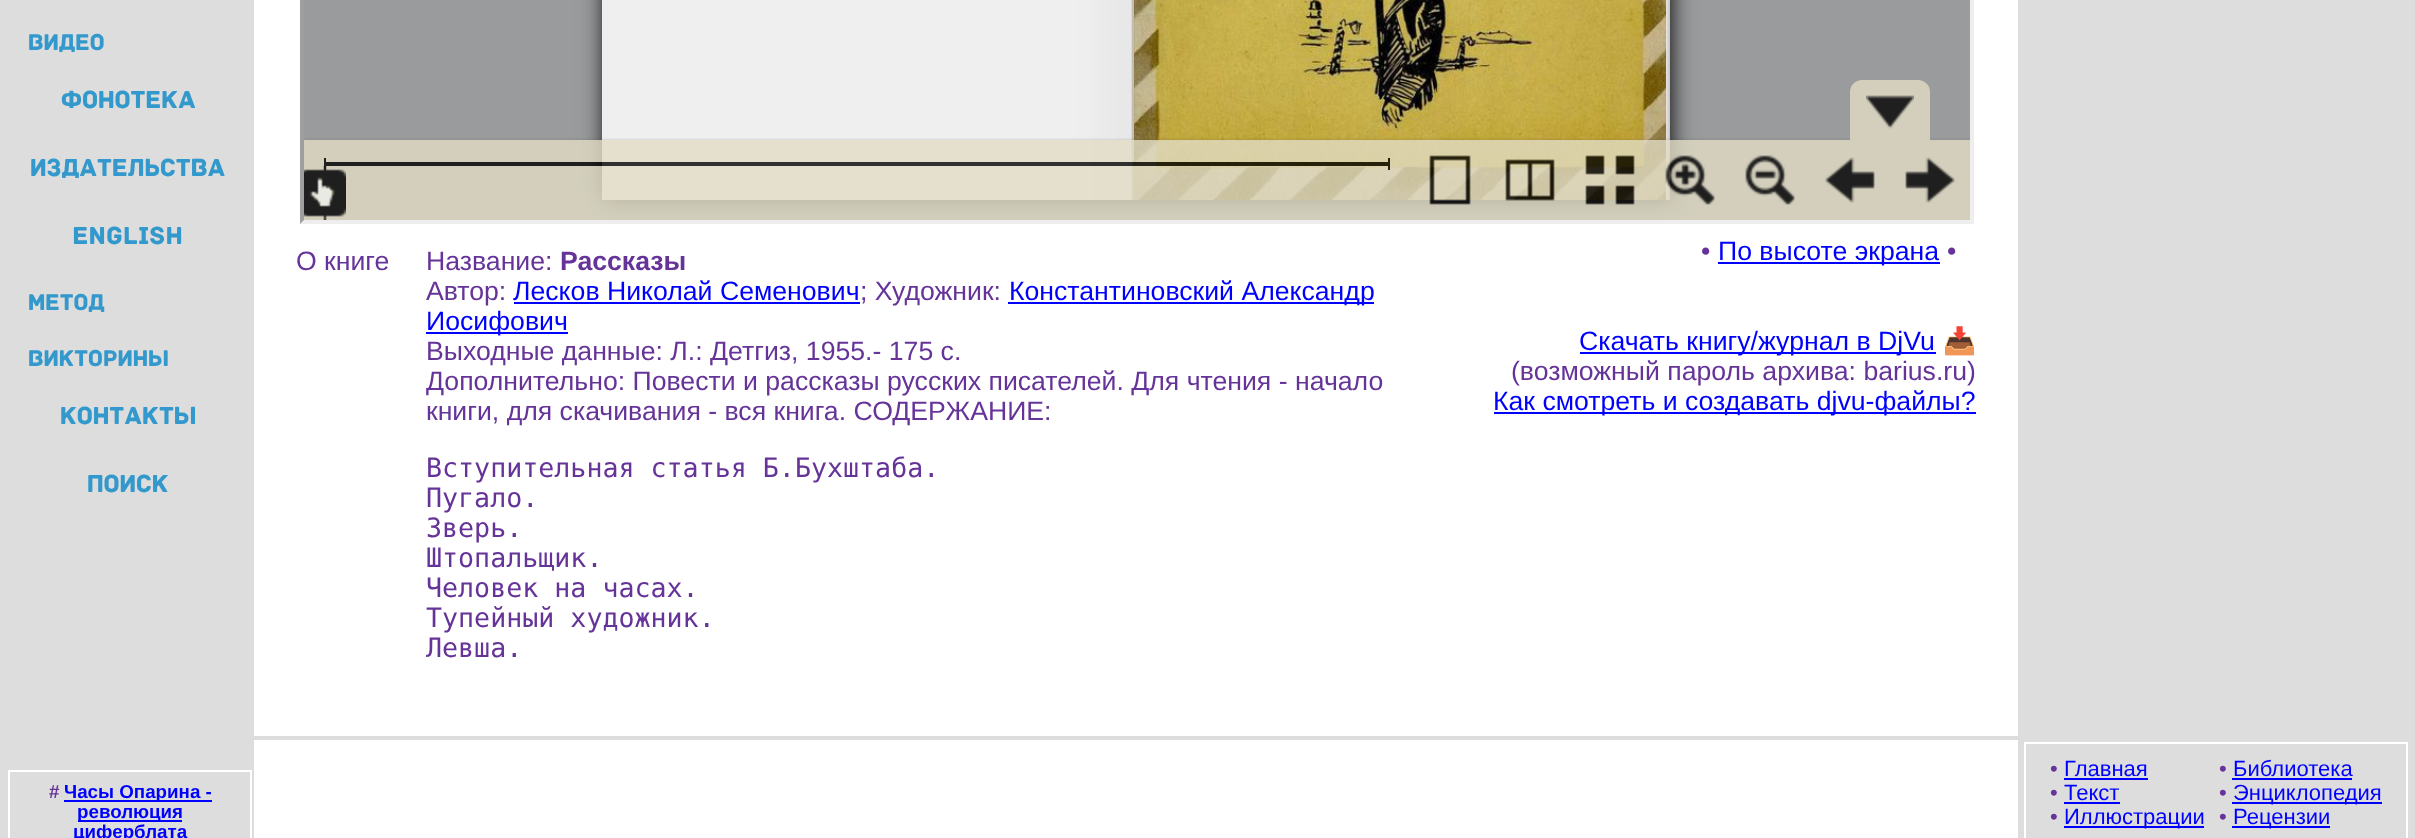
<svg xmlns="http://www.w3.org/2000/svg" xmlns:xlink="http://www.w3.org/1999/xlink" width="2415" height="838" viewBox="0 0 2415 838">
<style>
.cls-1{font:24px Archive;fill:#3399cc}
.cls-2{font:26px Archive;fill:#3399cc}
.cls-3{font:26.65px Liberation Sans;fill:#663399}
.cls-4{font:bold 26.65px Liberation Sans;fill:#663399}
.cls-5{font:26.65px Liberation Sans;fill:#0000ff}
.cls-6{font:26.65px DejaVu Sans Mono;fill:#663399}
.cls-7{font:26.65px Noto Color Emoji;fill:#663399}
.cls-8{font:bold 18.75px Liberation Sans;fill:#663399}
.cls-9{font:bold 18.75px Liberation Sans;fill:#0000ff}
.cls-10{font:22px Liberation Sans;fill:#663399}
.cls-11{font:22px Liberation Sans;fill:#0000ff}
</style>
<rect width="100%" height="100%" fill="#dddddd"/>
<rect fill="#ffffff" x="254" y="0" width="1764" height="736"/>
<path fill="#eeeeee" d="M1974-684V224L1970 220V-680Z"/>
<path fill="#eeeeee" d="M1974 224H300L304 220H1970Z"/>
<path fill="#9f9f9f" d="M300 224V-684L304-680V220Z"/>
<image xlink:href="image0.png" x="304" y="0" width="1666" height="220"/>
<rect fill="#0000ff" x="514" y="302" width="346" height="2"/>
<rect fill="#0000ff" x="1008" y="302" width="366" height="2"/>
<rect fill="#0000ff" x="426" y="332" width="142" height="2"/>
<rect fill="#0000ff" x="1718" y="262" width="222" height="2"/>
<rect fill="#0000ff" x="1580" y="352" width="356" height="2"/>
<rect fill="#0000ff" x="1494" y="412" width="482" height="2"/>
<rect fill="none" stroke="#ffffff" stroke-width="2" x="9" y="771" width="242" height="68"/>
<rect fill="#0000ff" x="64" y="800" width="148" height="2"/>
<rect fill="#0000ff" x="78" y="820" width="104" height="2"/>
<rect fill="#ffffff" x="254" y="740" width="1764" height="98"/>
<rect fill="none" stroke="#ffffff" stroke-width="2" x="2025" y="743" width="382" height="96"/>
<rect fill="#0000ff" x="2064" y="778" width="84" height="2"/>
<rect fill="#0000ff" x="2064" y="802" width="56" height="2"/>
<rect fill="#0000ff" x="2064" y="826" width="140" height="2"/>
<rect fill="#0000ff" x="2232" y="778" width="120" height="2"/>
<rect fill="#0000ff" x="2232" y="802" width="150" height="2"/>
<rect fill="#0000ff" x="2232" y="826" width="98" height="2"/>
<text class="cls-1" x="28" y="50">ВИДЕО</text>
<text class="cls-2" x="61" y="108">ФОНОТЕКА</text>
<text class="cls-2" x="30" y="176">ИЗДАТЕЛЬСТВА</text>
<text class="cls-2" x="72" y="244">ENGLISH</text>
<text class="cls-1" x="28" y="310">МЕТОД</text>
<text class="cls-1" x="28" y="366">ВИКТОРИНЫ</text>
<text class="cls-2" x="60" y="424">КОНТАКТЫ</text>
<text class="cls-2" x="87" y="492">ПОИСК</text>
<text class="cls-3" x="296" y="270">О книге</text>
<text class="cls-3" x="426" y="270">Название:</text>
<text class="cls-4" x="560" y="270">Рассказы</text>
<text class="cls-3" x="426" y="300">Автор:</text>
<text class="cls-5" x="513" y="300">Лесков Николай Семенович</text>
<text class="cls-3" x="860" y="300">; Художник:</text>
<text class="cls-5" x="1009" y="300">Константиновский Александр</text>
<text class="cls-5" x="426" y="330">Иосифович</text>
<text class="cls-3"><tspan x="426" y="360">Выходные данные: Л.: Детгиз, 1955.- 175 с.</tspan><tspan x="426" y="390">Дополнительно: Повести и рассказы русских писателей. Для чтения - начало</tspan><tspan x="426" y="420">книги, для скачивания - вся книга. СОДЕРЖАНИЕ:</tspan></text>
<text class="cls-6"><tspan x="426" y="477">Вступительная статья Б.Бухштаба.</tspan><tspan x="426" y="507">Пугало.</tspan><tspan x="426" y="537">Зверь.</tspan><tspan x="426" y="567">Штопальщик.</tspan><tspan x="426" y="597">Человек на часах.</tspan><tspan x="426" y="627">Тупейный художник.</tspan><tspan x="426" y="657">Левша.</tspan></text>
<text class="cls-3" x="1701" y="260">•</text>
<text class="cls-5" x="1718" y="260">По высоте экрана</text>
<text class="cls-3" x="1947" y="260">•</text>
<text class="cls-5" x="1579" y="350">Скачать книгу/журнал в DjVu</text>
<text class="cls-7" x="1943" y="350">📥</text>
<text class="cls-3" x="1511" y="380">(возможный пароль архива: barius.ru)</text>
<text class="cls-5" x="1493" y="410">Как смотреть и создавать djvu-файлы?</text>
<text class="cls-8" x="49" y="798">#</text>
<text class="cls-9" x="64" y="798">Часы Опарина -</text>
<text class="cls-9" x="77" y="818">революция</text>
<text class="cls-9" x="73" y="838">циферблата</text>
<text class="cls-10" x="2050" y="776">•</text>
<text class="cls-11" x="2064" y="776">Главная</text>
<text class="cls-10" x="2050" y="800">•</text>
<text class="cls-11" x="2064" y="800">Текст</text>
<text class="cls-10" x="2050" y="824">•</text>
<text class="cls-11" x="2064" y="824">Иллюстрации</text>
<text class="cls-10" x="2219" y="776">•</text>
<text class="cls-11" x="2233" y="776">Библиотека</text>
<text class="cls-10" x="2219" y="800">•</text>
<text class="cls-11" x="2233" y="800">Энциклопедия</text>
<text class="cls-10" x="2219" y="824">•</text>
<text class="cls-11" x="2233" y="824">Рецензии</text>
</svg>
